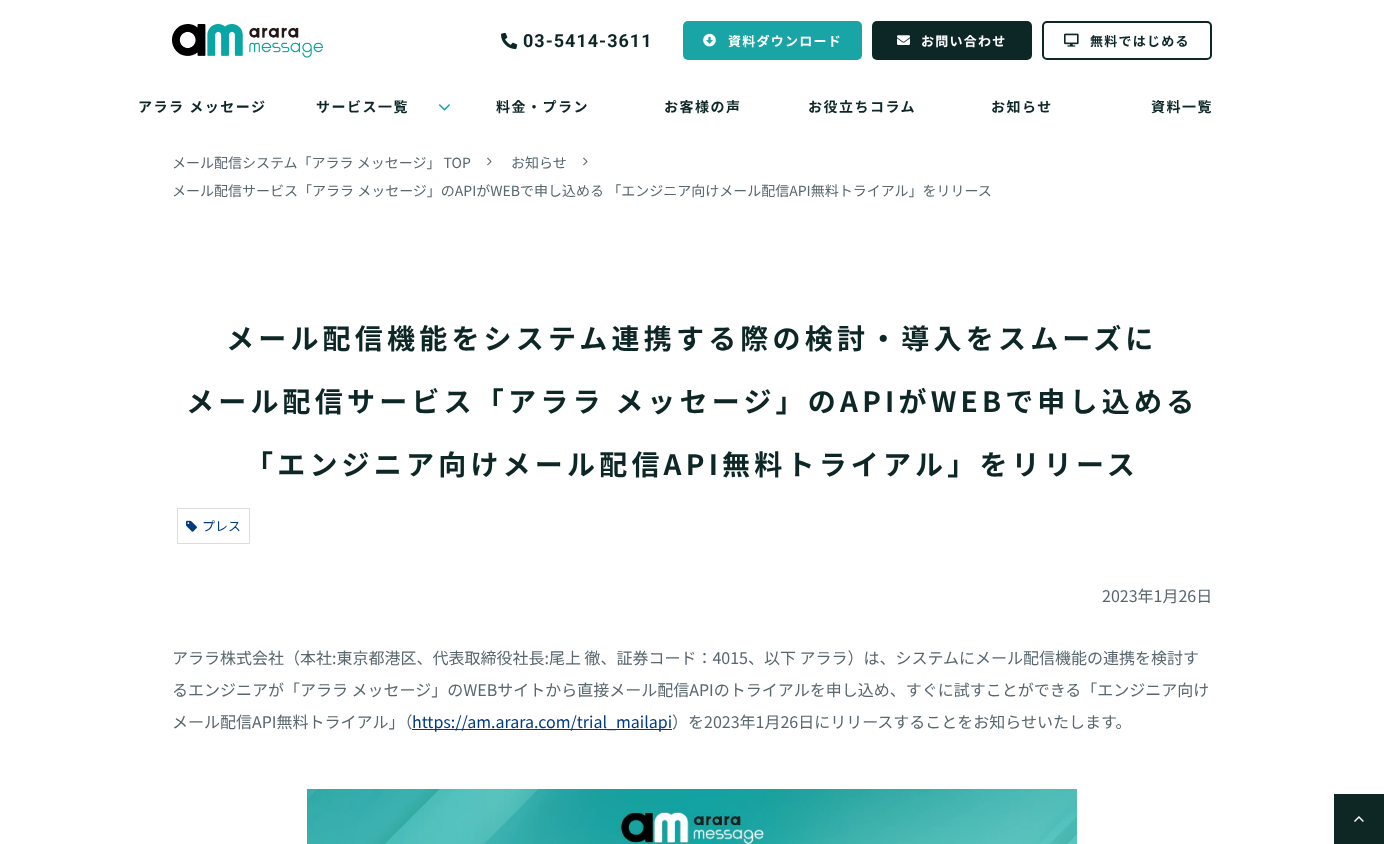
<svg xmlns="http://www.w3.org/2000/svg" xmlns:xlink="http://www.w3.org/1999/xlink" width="1384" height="844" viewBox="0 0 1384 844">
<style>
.cls-1{font:bold 18px Roboto;letter-spacing:1px;fill:#0d2727}
.cls-2{font:bold 13px Noto Sans JP;letter-spacing:1.25px;fill:#ffffff}
.cls-3{font:bold 13px Noto Sans JP;letter-spacing:1.25px;fill:#0d2727}
.cls-4{font:bold 14px Noto Sans JP;letter-spacing:1.5px;fill:#0d2727}
.cls-5{font:14px Noto Sans JP;fill:#58676e}
.cls-6{font:bold 28px Noto Sans JP;letter-spacing:4.2px;fill:#0d2727}
.cls-7{font:13px Noto Sans JP;fill:#003b82}
.cls-8{font:16px Noto Sans JP;fill:#58676e}
.cls-9{font:16px Noto Sans JP;fill:#003b82}
</style>
<rect width="100%" height="100%" fill="#ffffff"/>
<image xlink:href="image0.png" x="172" y="24" width="151" height="34"/>
<image xlink:href="image1.png" x="501" y="32" width="17" height="17"/>
<rect fill="#19a5a5" x="683" y="21" width="179" height="39" rx="5"/>
<image xlink:href="image2.png" x="703" y="33" width="13" height="14"/>
<rect fill="#0d2727" x="872" y="21" width="160" height="39" rx="5"/>
<image xlink:href="image3.png" x="897" y="35" width="13" height="10"/>
<rect fill="none" stroke="#0d2727" stroke-width="2" x="1043" y="22" width="168" height="37" rx="4"/>
<image xlink:href="image4.png" x="1064" y="33" width="15" height="14"/>
<image xlink:href="image5.png" x="438" y="104" width="12" height="7"/>
<image xlink:href="image6.png" x="487" y="157" width="5" height="9"/>
<image xlink:href="image6.png" x="583" y="157" width="5" height="9"/>
<rect fill="none" stroke="#dddddd" x="177.5" y="508.5" width="72" height="35"/>
<image xlink:href="image7.png" x="186" y="520" width="11" height="12"/>
<image xlink:href="image8.png" x="307" y="789" width="770" height="55"/>
<image xlink:href="image9.png" x="1334" y="794" width="50" height="50"/>
<text class="cls-1" x="523" y="47">03-5414-3611</text>
<text class="cls-2" x="728" y="46">資料ダウンロード</text>
<text class="cls-2" x="921" y="46">お問い合わせ</text>
<text class="cls-3" x="1090" y="46">無料ではじめる</text>
<text class="cls-4" x="138" y="112">アララ メッセージ</text>
<text class="cls-4" x="316" y="112">サービス一覧</text>
<text class="cls-4" x="496" y="112">料金・プラン</text>
<text class="cls-4" x="664" y="112">お客様の声</text>
<text class="cls-4" x="808" y="112">お役立ちコラム</text>
<text class="cls-4" x="991" y="112">お知らせ</text>
<text class="cls-4" x="1151" y="112">資料一覧</text>
<text class="cls-5" x="172" y="168">メール配信システム「アララ メッセージ」 TOP</text>
<text class="cls-5" x="511" y="168">お知らせ</text>
<text class="cls-5" x="172" y="196">メール配信サービス「アララ メッセージ」のAPIがWEBで申し込める 「エンジニア向けメール配信API無料トライアル」をリリース</text>
<text class="cls-6" x="226" y="349">メール配信機能をシステム連携する際の検討・導入をスムーズに</text>
<text class="cls-6" x="186" y="412">メール配信サービス「アララ メッセージ」のAPIがWEBで申し込める</text>
<text class="cls-6" x="245" y="475">「エンジニア向けメール配信API無料トライアル」をリリース</text>
<text class="cls-7" x="202" y="531">プレス</text>
<text class="cls-8" x="1102" y="602">2023年1月26日</text>
<text class="cls-8" x="172" y="664">アララ株式会社（本社:東京都港区、代表取締役社長:尾上 徹、証券コード：4015、以下 アララ）は、システムにメール配信機能の連携を検討す</text>
<text class="cls-8" x="172" y="696">るエンジニアが「アララ メッセージ」のWEBサイトから直接メール配信APIのトライアルを申し込め、すぐに試すことができる「エンジニア向け</text>
<text class="cls-8" x="172" y="728">メール配信API無料トライアル」（</text>
<rect fill="#003b82" x="412" y="729" width="260" height="1"/>
<text class="cls-9" x="412" y="728">https://am.arara.com/trial_mailapi</text>
<text class="cls-8" x="672" y="728">）を2023年1月26日にリリースすることをお知らせいたします。</text>
</svg>
